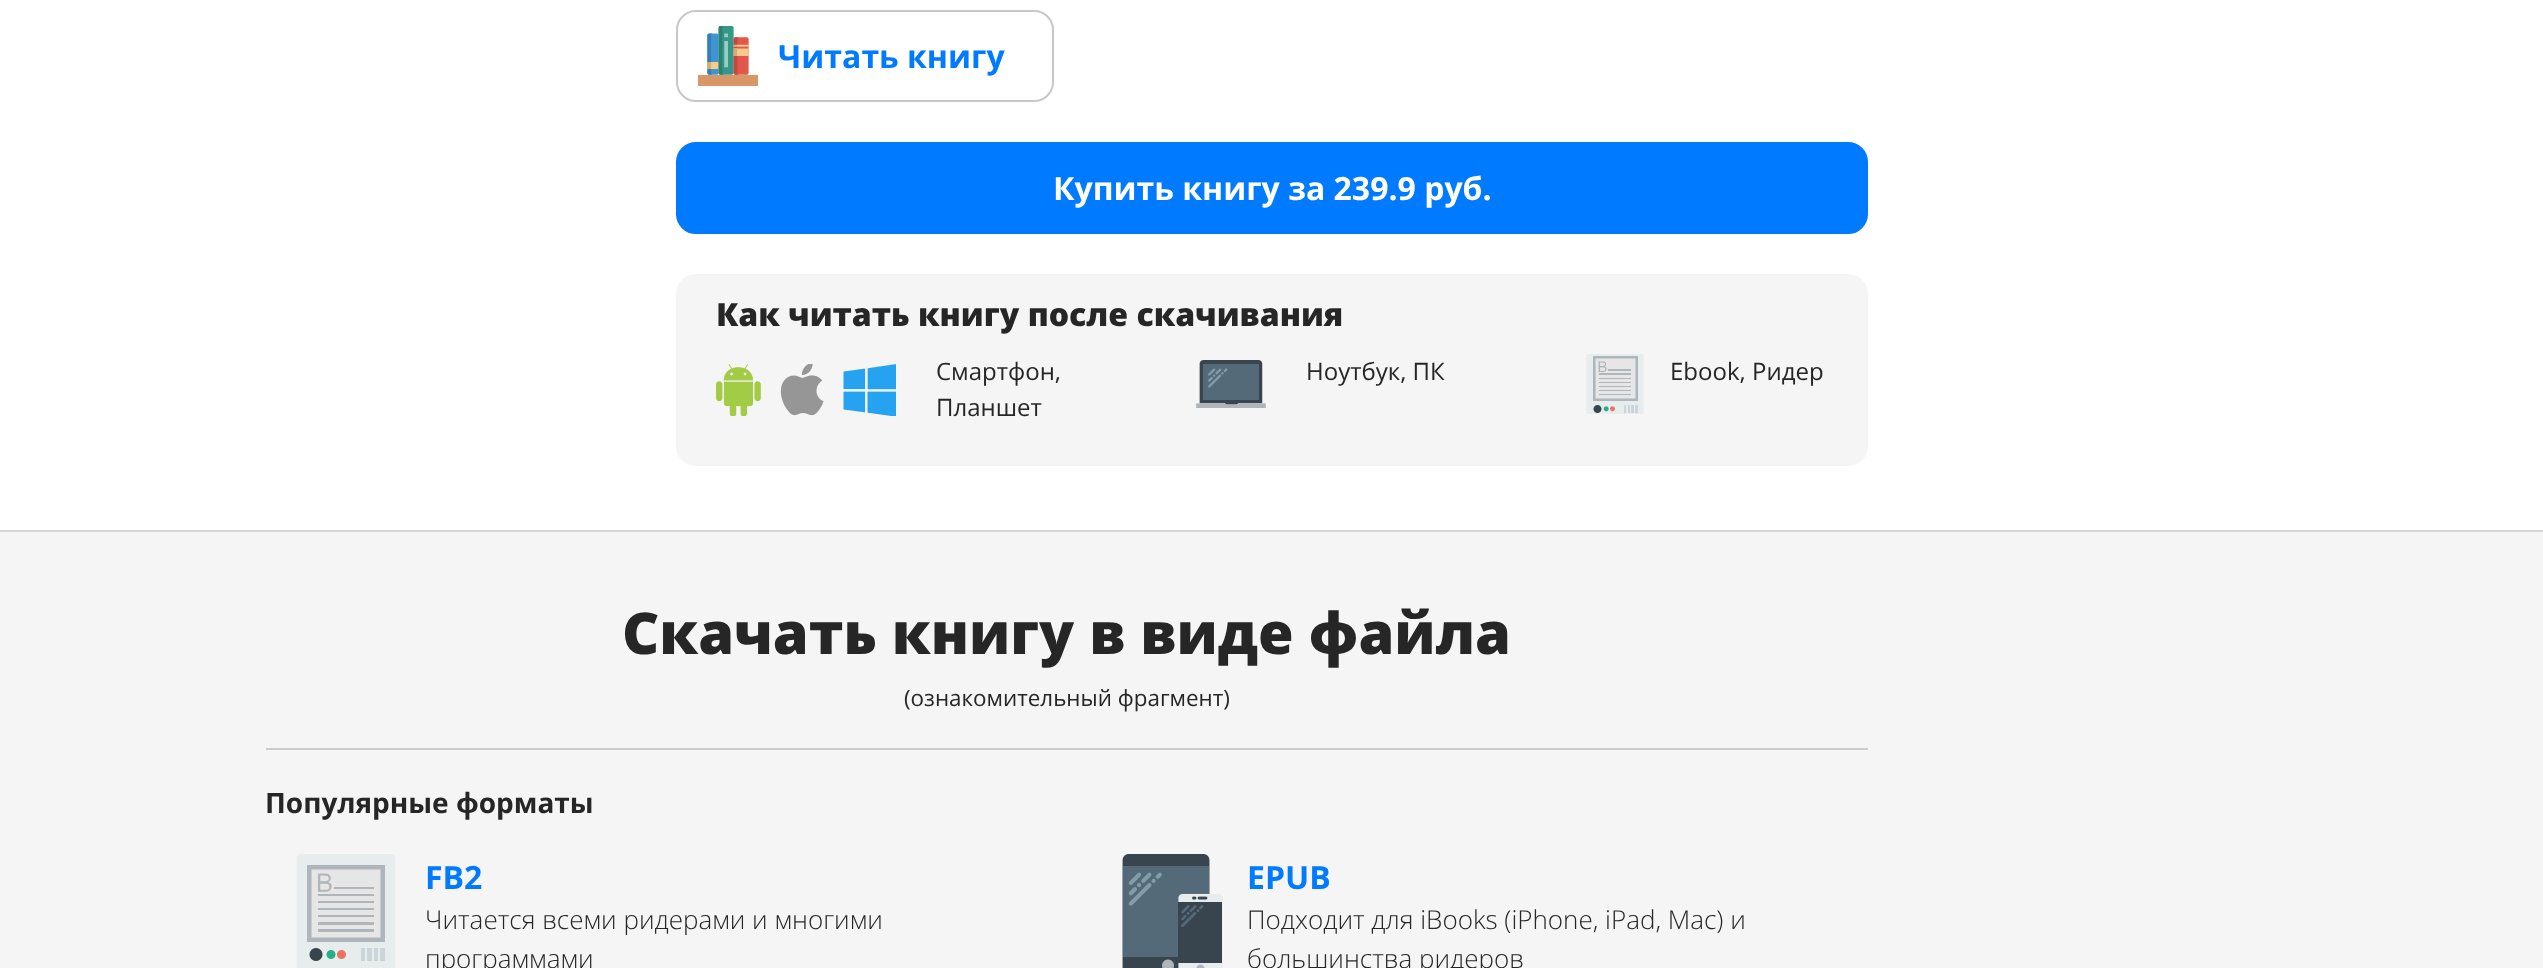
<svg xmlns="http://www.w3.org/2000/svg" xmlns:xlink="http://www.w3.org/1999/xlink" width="2543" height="968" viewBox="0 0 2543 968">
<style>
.cls-1{font:bold 32px Open Sans;fill:#007aff}
.cls-2{font:bold 32px Open Sans;fill:#ffffff}
.cls-3{font:800 32px Open Sans;fill:#262626}
.cls-4{font:24px Open Sans;fill:#262626}
.cls-5{font:800 57.6px Open Sans;fill:#262626}
.cls-6{font:22.4px Open Sans;fill:#262626}
.cls-7{font:bold 28px Open Sans;fill:#262626}
.cls-8{font:300 26px Open Sans;fill:#262626}
</style>
<rect width="100%" height="100%" fill="#ffffff"/>
<rect fill="#d6d6d6" x="0" y="530" width="2543" height="2"/>
<image xlink:href="image0.png" x="698" y="26" width="60" height="60"/>
<rect fill="none" stroke="#c8c7cc" stroke-width="2" x="677" y="11" width="376" height="90" rx="19"/>
<rect fill="#007aff" stroke="#007aff" stroke-width="2" x="677" y="143" width="1190" height="90" rx="19"/>
<rect fill="#f5f5f5" x="676" y="274" width="1192" height="192" rx="20"/>
<image xlink:href="image1.png" x="716" y="364" width="180" height="52"/>
<image xlink:href="image2.png" x="1196" y="360" width="70" height="48"/>
<image xlink:href="image3.png" x="1586" y="354" width="58" height="60"/>
<rect fill="#f5f5f5" x="0" y="532" width="2543" height="436"/>
<rect fill="#cccccc" x="266" y="748" width="1602" height="2"/>
<image xlink:href="image4.png" x="296" y="854" width="100" height="114"/>
<image xlink:href="image5.png" x="1122" y="854" width="101" height="114"/>
<text class="cls-1" x="778" y="68">Читать книгу</text>
<text class="cls-2" x="1053" y="200">Купить книгу за 239.9 руб.</text>
<text class="cls-3" x="716" y="326">Как читать книгу после скачивания</text>
<text class="cls-4"><tspan x="936" y="380">Смартфон,</tspan><tspan x="936" y="416">Планшет</tspan></text>
<text class="cls-4" x="1306" y="380">Ноутбук, ПК</text>
<text class="cls-4" x="1670" y="380">Ebook, Ридер</text>
<text class="cls-5" x="622" y="654">Скачать книгу в виде файла</text>
<text class="cls-6" x="904" y="706">(ознакомительный фрагмент)</text>
<text class="cls-7" x="265" y="813">Популярные форматы</text>
<text class="cls-1" x="425" y="889">FB2</text>
<text class="cls-8"><tspan x="425" y="929">Читается всеми ридерами и многими</tspan><tspan x="425" y="968">программами</tspan></text>
<text class="cls-1" x="1247" y="889">EPUB</text>
<text class="cls-8"><tspan x="1247" y="929">Подходит для iBooks (iPhone, iPad, Mac) и</tspan><tspan x="1247" y="968">большинства ридеров</tspan></text>
</svg>
